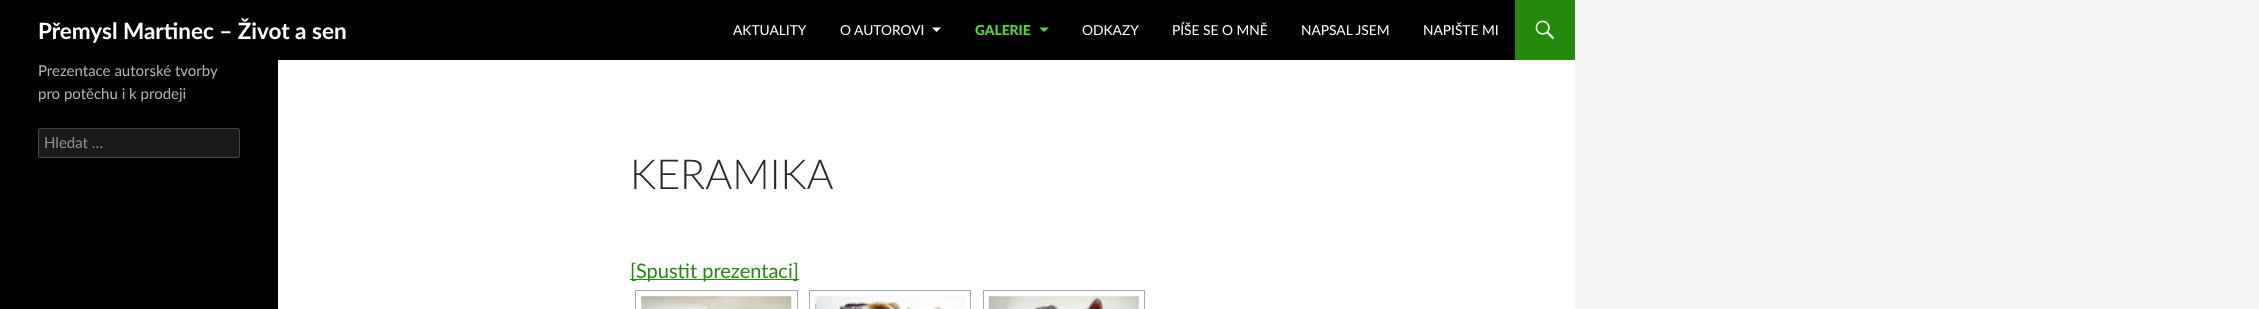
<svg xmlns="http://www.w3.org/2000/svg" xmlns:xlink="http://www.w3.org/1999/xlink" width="2259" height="309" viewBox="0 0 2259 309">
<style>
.cls-1{font:bold 22.5px Lato;fill:#ffffff}
.cls-2{font:13.75px Lato;fill:#ffffff}
.cls-3{font:900 13.75px Lato;fill:#55d737}
.cls-4{font:15px Lato;fill:#b3b3b3}
.cls-5{font:15px Lato;fill:#939393}
.cls-6{font:300 41.25px Lato;fill:#2b2b2b}
.cls-7{font:20px Lato;fill:#24890d}
</style>
<rect width="100%" height="100%" fill="#f5f5f5"/>
<rect fill="#ffffff" x="278" y="60" width="1297" height="249"/>
<rect fill="#000000" x="0" y="0" width="1515" height="60"/>
<path fill="#ffffff" d="M932 27.5L936.5 32L941 27.5Z"/>
<path fill="#55d737" d="M1039.5 27.5L1044 32L1049 27.5Z"/>
<rect fill="#24890d" x="1515" y="0" width="60" height="60"/>
<image xlink:href="image0.png" x="1535" y="20" width="20" height="20"/>
<rect fill="#000000" x="0" y="60" width="278" height="249"/>
<rect fill="#1a1a1a" x="38" y="128" width="202" height="30" rx="2.5"/>
<rect fill="none" stroke="#ffffff" stroke-opacity="0.2" x="38.5" y="128.5" width="201" height="29" rx="2"/>
<rect fill="#24890d" x="630" y="279" width="169" height="1"/>
<rect fill="none" stroke="#a9a9a9" x="635.5" y="290.5" width="162" height="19"/>
<image xlink:href="image1.png" x="641" y="296" width="151" height="13"/>
<rect fill="none" stroke="#a9a9a9" x="809.5" y="290.5" width="161" height="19"/>
<image xlink:href="image2.png" x="815" y="296" width="150" height="13"/>
<rect fill="none" stroke="#a9a9a9" x="983.5" y="290.5" width="161" height="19"/>
<image xlink:href="image3.png" x="988" y="296" width="151" height="13"/>
<text class="cls-1" x="38" y="39">Přemysl Martinec – Život a sen</text>
<text class="cls-2" x="733" y="35">AKTUALITY</text>
<text class="cls-2" x="840" y="35">O AUTOROVI</text>
<text class="cls-3" x="975" y="35">GALERIE</text>
<text class="cls-2" x="1082" y="35">ODKAZY</text>
<text class="cls-2" x="1172" y="35">PÍŠE SE O MNĚ</text>
<text class="cls-2" x="1301" y="35">NAPSAL JSEM</text>
<text class="cls-2" x="1423" y="35">NAPIŠTE MI</text>
<text class="cls-4"><tspan x="38" y="76">Prezentace autorské tvorby</tspan><tspan x="38" y="99">pro potěchu i k prodeji</tspan></text>
<text class="cls-5" x="44" y="148">Hledat …</text>
<text class="cls-6" x="630" y="189">KERAMIKA</text>
<text class="cls-7" x="630" y="278">[Spustit prezentaci]</text>
</svg>
